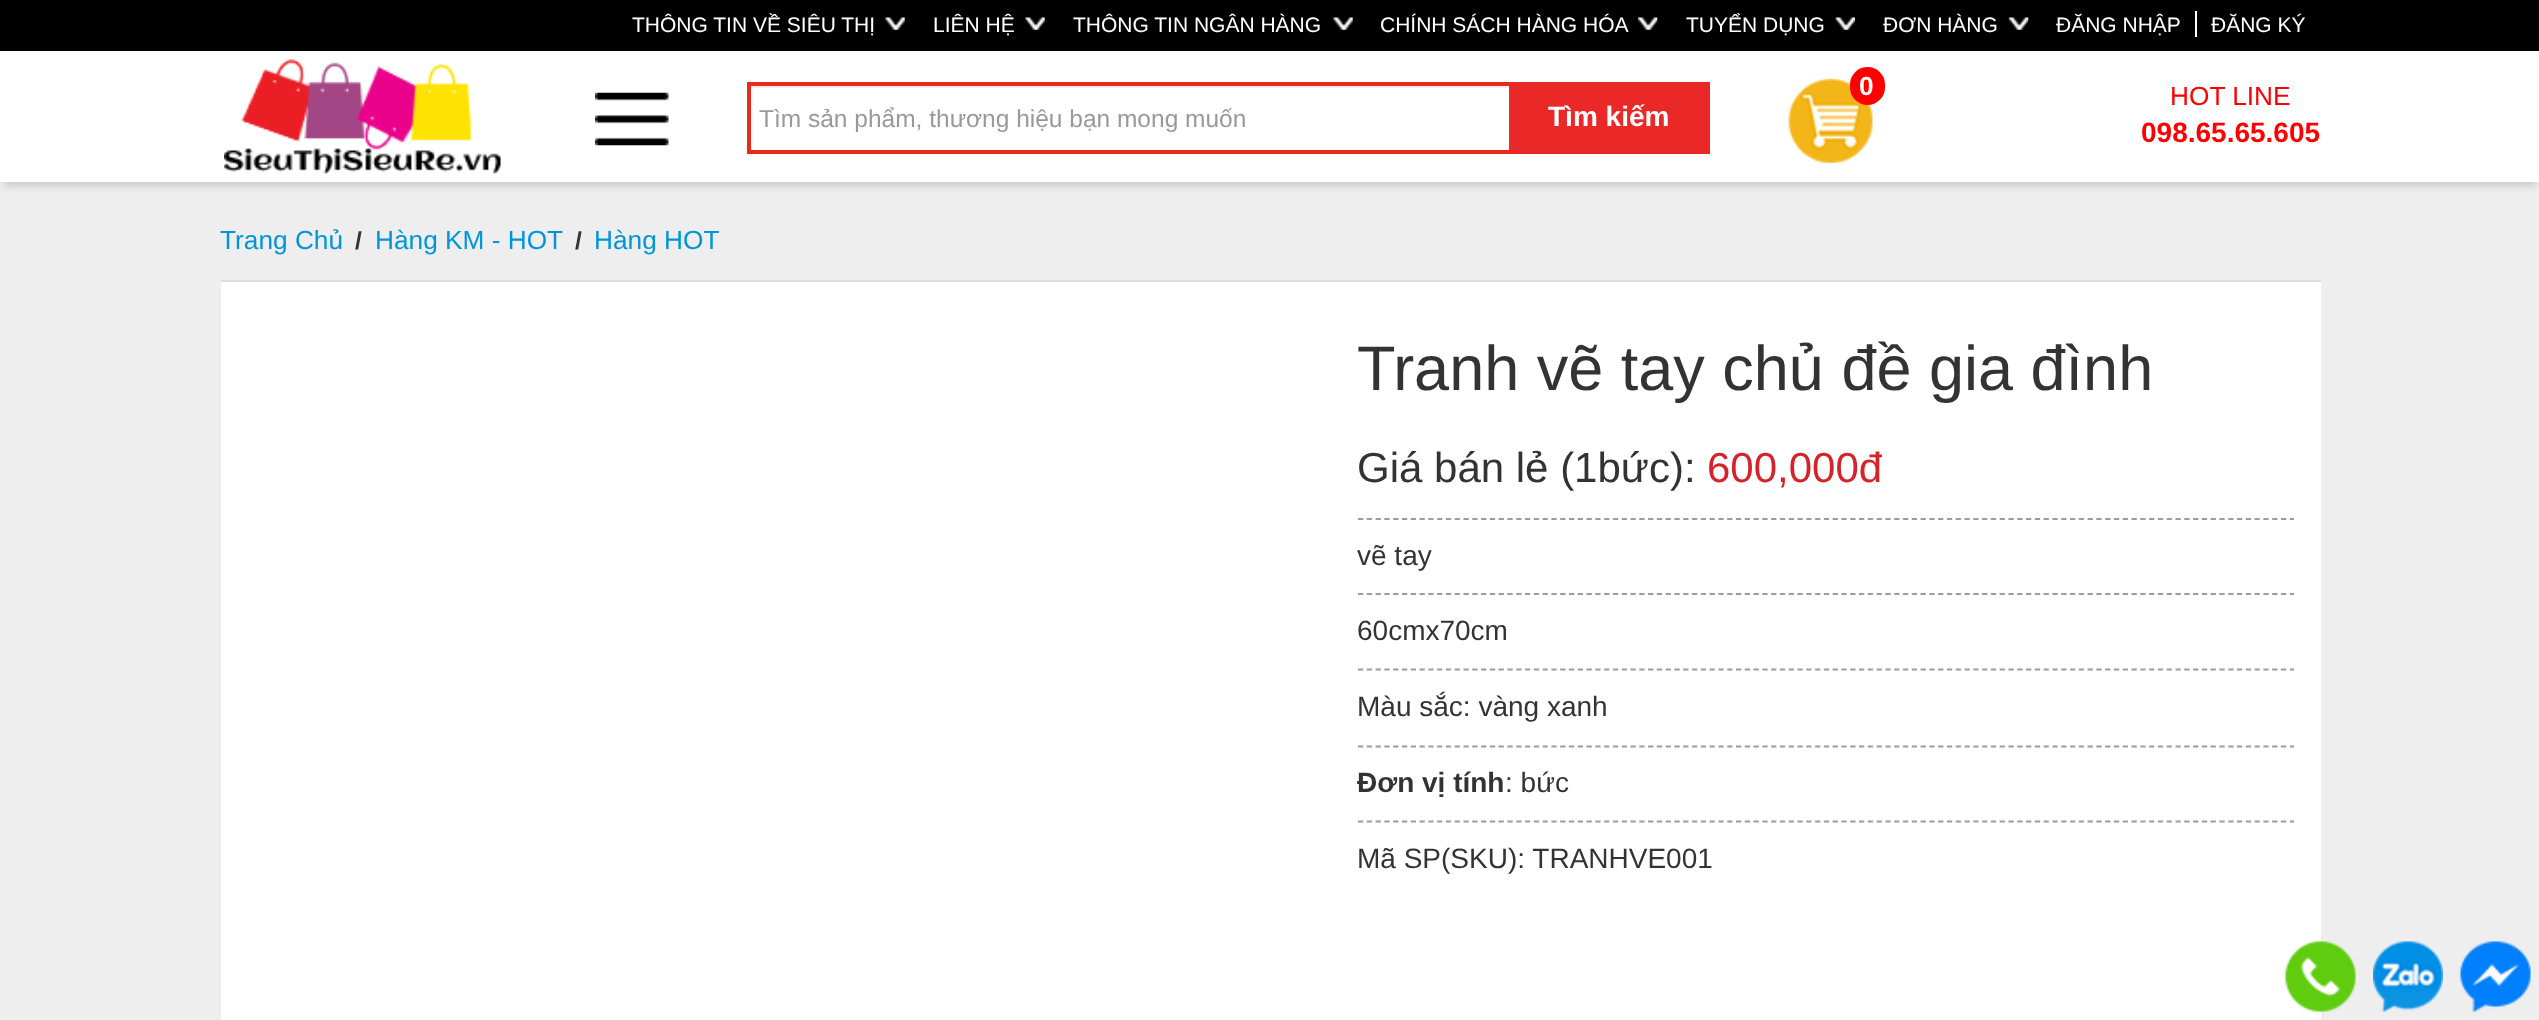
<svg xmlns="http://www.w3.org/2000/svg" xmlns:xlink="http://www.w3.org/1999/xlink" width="2539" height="1020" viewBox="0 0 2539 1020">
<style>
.cls-1{font:21px Liberation Sans;fill:#ffffff}
.cls-2{font:24.5px Liberation Sans;fill:#999999}
.cls-3{font:bold 28px Liberation Sans;fill:#ffffff}
.cls-4{font:bold 26.25px Liberation Sans;fill:#ffffff}
.cls-5{font:26.25px Liberation Sans;fill:#ff0000}
.cls-6{font:bold 28px Liberation Sans;fill:#ff0000}
.cls-7{font:26.25px Liberation Sans;fill:#0095da}
.cls-8{font:bold 24.5px Liberation Sans;fill:#333333}
.cls-9{font:63px Liberation Sans;fill:#333333}
.cls-10{font:42px Liberation Sans;fill:#333333}
.cls-11{font:42px Liberation Sans;fill:#d4232b}
.cls-12{font:28px Liberation Sans;fill:#333333}
.cls-13{font:bold 28px Liberation Sans;fill:#333333}
</style>
<rect width="100%" height="100%" fill="#eeeeee"/>
<rect fill="#000000" x="0" y="0" width="2539" height="51"/>
<image xlink:href="image0.png" x="885" y="17" width="20" height="13"/>
<image xlink:href="image1.png" x="1025" y="17" width="20" height="13"/>
<image xlink:href="image0.png" x="1333" y="17" width="20" height="13"/>
<image xlink:href="image2.png" x="1638" y="17" width="20" height="13"/>
<image xlink:href="image3.png" x="1835" y="17" width="20" height="13"/>
<image xlink:href="image4.png" x="2009" y="17" width="20" height="13"/>
<rect fill="#ffffff" x="2195" y="11" width="2" height="26"/>
<rect fill="#000000" fill-opacity="0.15" filter="blur(3.5px)" x="4" y="61" width="2532" height="125"/>
<rect fill="#ffffff" x="0" y="51" width="2539" height="131"/>
<image xlink:href="image5.png" x="224" y="59" width="277" height="115"/>
<image xlink:href="image6.png" x="595" y="92" width="74" height="54"/>
<rect fill="#ececec" x="751" y="86" width="758" height="2"/>
<rect fill="none" stroke="#ea281c" stroke-width="4" x="749" y="84" width="959" height="68"/>
<rect fill="#ea2828" x="1509" y="82" width="201" height="72"/>
<image xlink:href="image7.png" x="1788" y="78" width="85" height="85"/>
<rect fill="#ff0000" x="1850" y="67" width="35" height="38" rx="17.5"/>
<rect fill="#dedede" x="221" y="280" width="2100" height="2"/>
<rect fill="#ffffff" x="221" y="282" width="2100" height="738"/>
<path fill="none" stroke="#9c9c9c" stroke-width="1.8" stroke-dasharray="5.25 3.54" d="M1358 519H2294"/>
<path fill="none" stroke="#9c9c9c" stroke-width="1.8" stroke-dasharray="5.25 3.54" d="M1358 594H2294"/>
<path fill="none" stroke="#9c9c9c" stroke-width="1.8" stroke-dasharray="5.25 3.54" d="M1358 669.5H2294"/>
<path fill="none" stroke="#9c9c9c" stroke-width="1.8" stroke-dasharray="5.25 3.54" d="M1358 746.5H2294"/>
<path fill="none" stroke="#9c9c9c" stroke-width="1.8" stroke-dasharray="5.25 3.54" d="M1358 821.5H2294"/>
<image xlink:href="image8.png" x="2285" y="941" width="71" height="71"/>
<image xlink:href="image9.png" x="2373" y="941" width="70" height="71"/>
<image xlink:href="image10.png" x="2460" y="941" width="71" height="71"/>
<text class="cls-1" x="632" y="32">THÔNG TIN VỀ SIÊU THỊ</text>
<text class="cls-1" x="933" y="32">LIÊN HỆ</text>
<text class="cls-1" x="1073" y="32">THÔNG TIN NGÂN HÀNG</text>
<text class="cls-1" x="1380" y="32">CHÍNH SÁCH HÀNG HÓA</text>
<text class="cls-1" x="1686" y="32">TUYỂN DỤNG</text>
<text class="cls-1" x="1883" y="32">ĐƠN HÀNG</text>
<text class="cls-1" x="2056" y="32">ĐĂNG NHẬP</text>
<text class="cls-1" x="2211" y="32">ĐĂNG KÝ</text>
<text class="cls-2" x="759" y="127">Tìm sản phẩm, thương hiệu bạn mong muốn</text>
<text class="cls-3" x="1548" y="126">Tìm kiếm</text>
<text class="cls-4" x="1859" y="95">0</text>
<text class="cls-5" x="2170" y="105">HOT LINE</text>
<text class="cls-6" x="2141" y="142">098.65.65.605</text>
<text class="cls-7" x="220" y="249">Trang Chủ</text>
<text class="cls-8" x="355" y="249">/</text>
<text class="cls-7" x="375" y="249">Hàng KM - HOT</text>
<text class="cls-8" x="575" y="249">/</text>
<text class="cls-7" x="594" y="249">Hàng HOT</text>
<text class="cls-9" x="1357" y="390">Tranh vẽ tay chủ đề gia đình</text>
<text class="cls-10" x="1357" y="482">Giá bán lẻ (1bức):</text>
<text class="cls-11" x="1707" y="482">600,000đ</text>
<text class="cls-12" x="1357" y="565">vẽ tay</text>
<text class="cls-12" x="1357" y="640">60cmx70cm</text>
<text class="cls-12" x="1357" y="716">Màu sắc: vàng xanh</text>
<text class="cls-13" x="1357" y="792">Đơn vị tính</text>
<text class="cls-12" x="1505" y="792">: bức</text>
<text class="cls-12" x="1357" y="868">Mã SP(SKU): TRANHVE001</text>
</svg>
